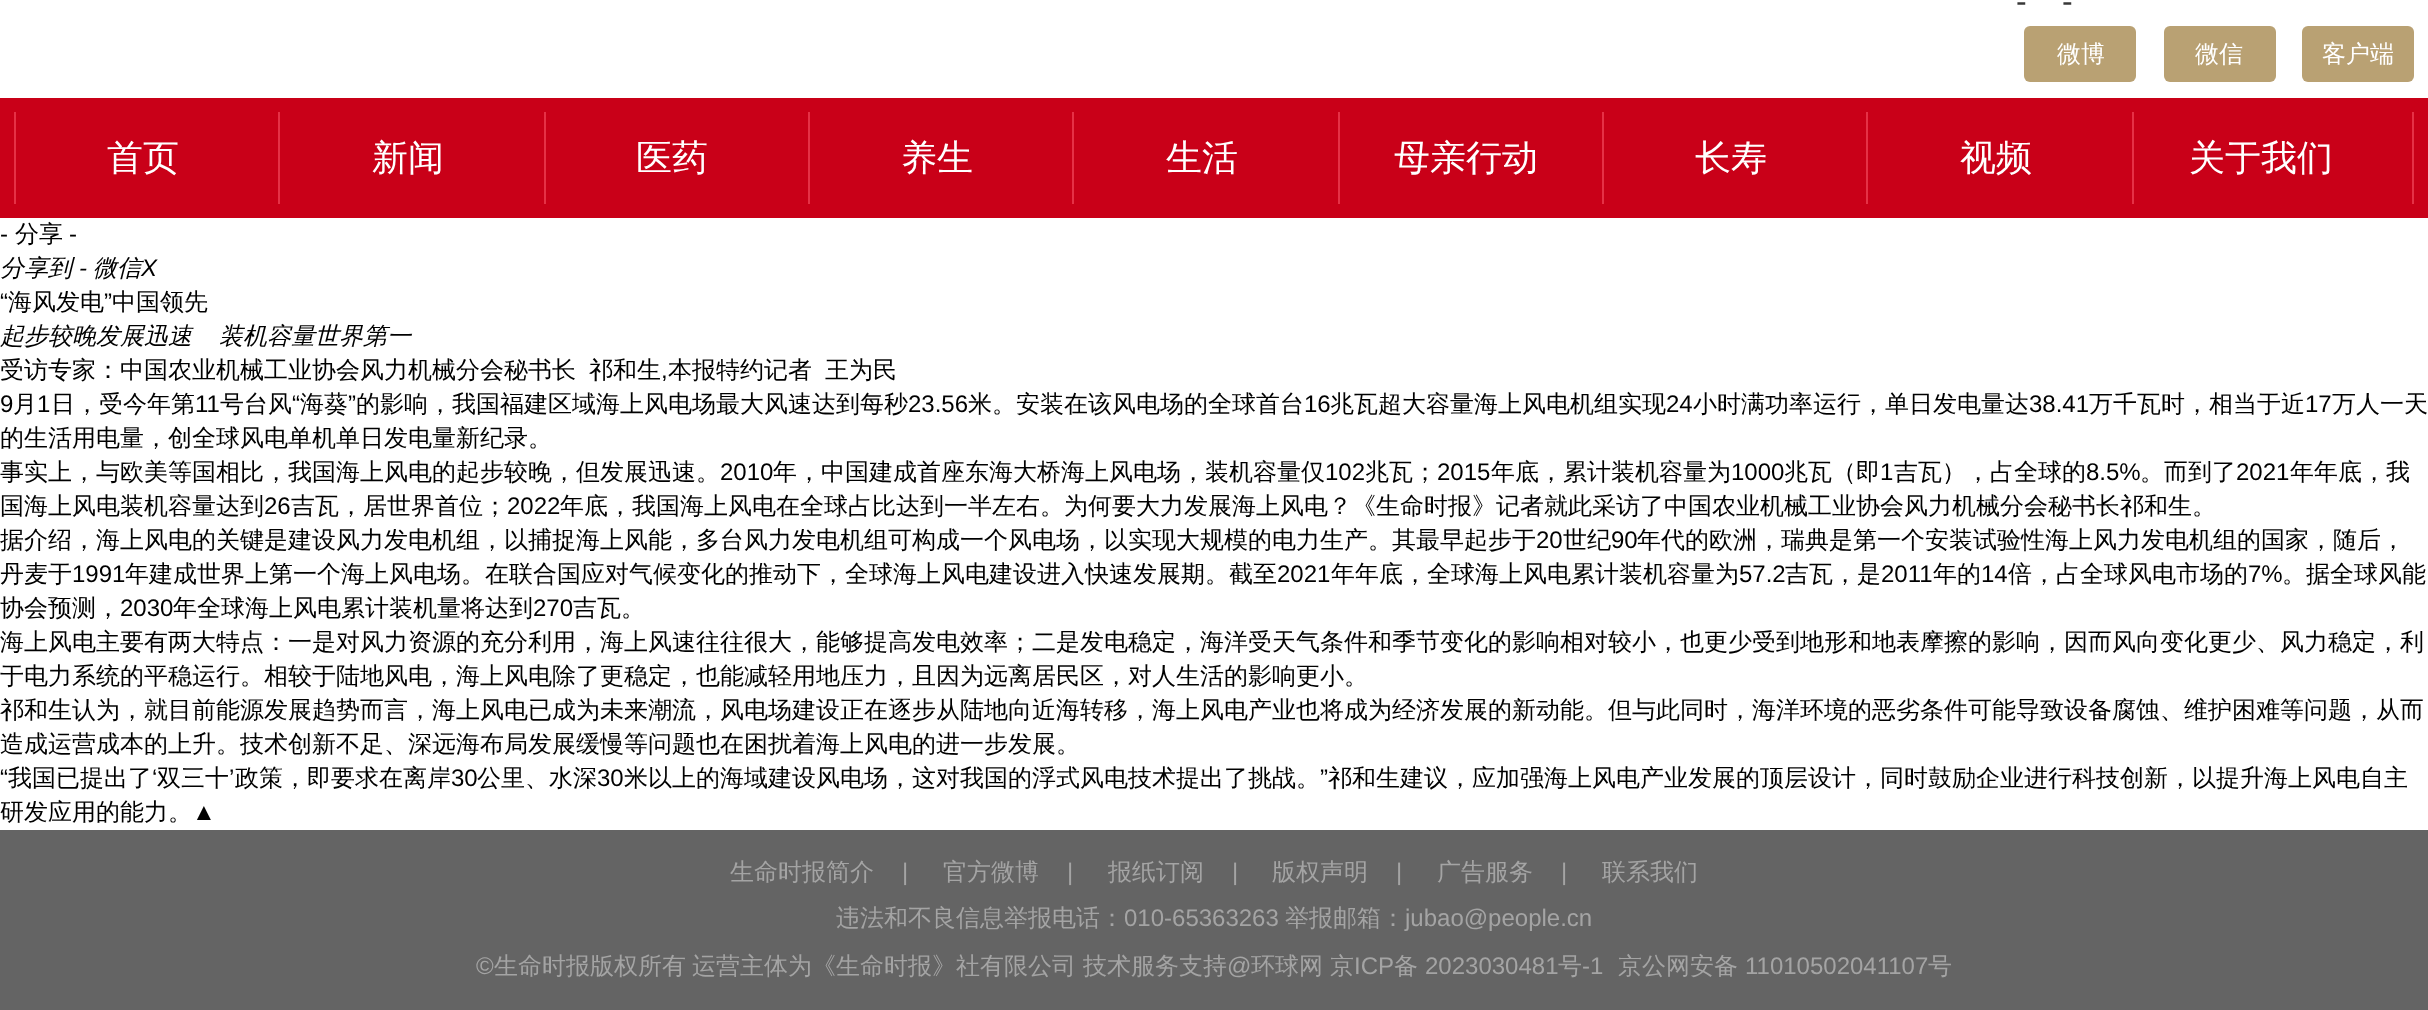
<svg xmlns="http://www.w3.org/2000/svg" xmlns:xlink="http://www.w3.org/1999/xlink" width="2428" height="1010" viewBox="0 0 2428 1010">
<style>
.cls-1{font:32px Liberation Sans;fill:#383838}
.cls-2{font:500 24px WenQuanYi Zen Hei;fill:#ffffff}
.cls-3{font:500 36px WenQuanYi Zen Hei;fill:#ffffff}
.cls-4{font:24px Liberation Sans;fill:#000000}
.cls-5{font:500 24px WenQuanYi Zen Hei;fill:#000000}
.cls-6{font:italic 500 24px WenQuanYi Zen Hei;fill:#000000}
.cls-7{font:italic 24px Liberation Sans;fill:#000000}
.cls-8{font:500 24px WenQuanYi Zen Hei;fill:#a4a4a4}
.cls-9{font:24px Liberation Sans;fill:#a4a4a4}
</style>
<rect width="100%" height="100%" fill="#ffffff"/>
<rect fill="#b9a173" x="2024" y="26" width="112" height="56" rx="6"/>
<rect fill="#b9a173" x="2164" y="26" width="112" height="56" rx="6"/>
<rect fill="#b9a173" x="2302" y="26" width="112" height="56" rx="6"/>
<rect fill="#c90018" x="0" y="98" width="2428" height="120"/>
<rect fill="#e53146" x="14" y="112" width="2" height="92"/>
<rect fill="#e53146" x="278" y="112" width="2" height="92"/>
<rect fill="#e53146" x="544" y="112" width="2" height="92"/>
<rect fill="#e53146" x="808" y="112" width="2" height="92"/>
<rect fill="#e53146" x="1072" y="112" width="2" height="92"/>
<rect fill="#e53146" x="1338" y="112" width="2" height="92"/>
<rect fill="#e53146" x="1602" y="112" width="2" height="92"/>
<rect fill="#e53146" x="1866" y="112" width="2" height="92"/>
<rect fill="#e53146" x="2132" y="112" width="2" height="92"/>
<rect fill="#e53146" x="2412" y="112" width="2" height="92"/>
<rect fill="#646464" x="0" y="830" width="2428" height="180"/>
<text class="cls-1" x="2016" y="12">-</text>
<text class="cls-1" x="2062" y="12">-</text>
<text class="cls-2" x="2057" y="62">微博</text>
<text class="cls-2" x="2195" y="62">微信</text>
<text class="cls-2" x="2322" y="62">客户端</text>
<text class="cls-3" x="107" y="170">首页</text>
<text class="cls-3" x="372" y="170">新闻</text>
<text class="cls-3" x="636" y="170">医药</text>
<text class="cls-3" x="901" y="170">养生</text>
<text class="cls-3" x="1166" y="170">生活</text>
<text class="cls-3" x="1394" y="170">母亲行动</text>
<text class="cls-3" x="1695" y="170">长寿</text>
<text class="cls-3" x="1960" y="170">视频</text>
<text class="cls-3" x="2189" y="170">关于我们</text>
<text class="cls-4" x="0" y="242">-</text>
<text class="cls-5" x="15" y="242">分享</text>
<text class="cls-4" x="69" y="242">-</text>
<text class="cls-6" x="0" y="276">分享到</text>
<text class="cls-7" x="79" y="276">-</text>
<text class="cls-6" x="93" y="276">微信</text>
<text class="cls-7" x="141" y="276">X</text>
<text class="cls-4" x="0" y="310">“</text>
<text class="cls-5" x="8" y="310">海风发电</text>
<text class="cls-4" x="104" y="310">”</text>
<text class="cls-5" x="112" y="310">中国领先</text>
<text class="cls-6" x="0" y="344">起步较晚发展迅速</text>
<text class="cls-6" x="219" y="344">装机容量世界第一</text>
<text class="cls-5" x="0" y="378">受访专家：中国农业机械工业协会风力机械分会秘书长</text>
<text class="cls-5" x="589" y="378">祁和生</text>
<text class="cls-4" x="661" y="378">,</text>
<text class="cls-5" x="668" y="378">本报特约记者</text>
<text class="cls-5" x="825" y="378">王为民</text>
<text class="cls-4" x="0" y="412">9</text>
<text class="cls-5" x="13" y="412">月</text>
<text class="cls-4" x="37" y="412">1</text>
<text class="cls-5" x="51" y="412">日，受今年第</text>
<text class="cls-4" x="195" y="412">11</text>
<text class="cls-5" x="220" y="412">号台风</text>
<text class="cls-4" x="292" y="412">“</text>
<text class="cls-5" x="300" y="412">海葵</text>
<text class="cls-4" x="348" y="412">”</text>
<text class="cls-5" x="356" y="412">的影响，我国福建区域海上风电场最大风速达到每秒</text>
<text class="cls-4" x="908" y="412">23.56</text>
<text class="cls-5" x="968" y="412">米。安装在该风电场的全球首台</text>
<text class="cls-4" x="1304" y="412">16</text>
<text class="cls-5" x="1330" y="412">兆瓦超大容量海上风电机组实现</text>
<text class="cls-4" x="1666" y="412">24</text>
<text class="cls-5" x="1693" y="412">小时满功率运行，单日发电量达</text>
<text class="cls-4" x="2029" y="412">38.41</text>
<text class="cls-5" x="2089" y="412">万千瓦时，相当于近</text>
<text class="cls-4" x="2305" y="412">17</text>
<text class="cls-5" x="2332" y="412">万人一天</text>
<text class="cls-5"><tspan x="0" y="446">的生活用电量，创全球风电单机单日发电量新纪录。</tspan><tspan x="0" y="480">事实上，与欧美等国相比，我国海上风电的起步较晚，但发展迅速。</tspan></text>
<text class="cls-4" x="720" y="480">2010</text>
<text class="cls-5" x="773" y="480">年，中国建成首座东海大桥海上风电场，装机容量仅</text>
<text class="cls-4" x="1325" y="480">102</text>
<text class="cls-5" x="1365" y="480">兆瓦；</text>
<text class="cls-4" x="1437" y="480">2015</text>
<text class="cls-5" x="1491" y="480">年底，累计装机容量为</text>
<text class="cls-4" x="1731" y="480">1000</text>
<text class="cls-5" x="1784" y="480">兆瓦（即</text>
<text class="cls-4" x="1880" y="480">1</text>
<text class="cls-5" x="1894" y="480">吉瓦），占全球的</text>
<text class="cls-4" x="2086" y="480">8.5%</text>
<text class="cls-5" x="2140" y="480">。而到了</text>
<text class="cls-4" x="2236" y="480">2021</text>
<text class="cls-5" x="2290" y="480">年年底，我</text>
<text class="cls-5" x="0" y="514">国海上风电装机容量达到</text>
<text class="cls-4" x="264" y="514">26</text>
<text class="cls-5" x="291" y="514">吉瓦，居世界首位；</text>
<text class="cls-4" x="507" y="514">2022</text>
<text class="cls-5" x="560" y="514">年底，我国海上风电在全球占比达到一半左右。为何要大力发展海上风电？《生命时报》记者就此采访了中国农业机械工业协会风力机械分会秘书长祁和生。</text>
<text class="cls-5" x="0" y="548">据介绍，海上风电的关键是建设风力发电机组，以捕捉海上风能，多台风力发电机组可构成一个风电场，以实现大规模的电力生产。其最早起步于</text>
<text class="cls-4" x="1536" y="548">20</text>
<text class="cls-5" x="1563" y="548">世纪</text>
<text class="cls-4" x="1611" y="548">90</text>
<text class="cls-5" x="1637" y="548">年代的欧洲，瑞典是第一个安装试验性海上风力发电机组的国家，随后，</text>
<text class="cls-5" x="0" y="582">丹麦于</text>
<text class="cls-4" x="72" y="582">1991</text>
<text class="cls-5" x="125" y="582">年建成世界上第一个海上风电场。在联合国应对气候变化的推动下，全球海上风电建设进入快速发展期。截至</text>
<text class="cls-4" x="1277" y="582">2021</text>
<text class="cls-5" x="1331" y="582">年年底，全球海上风电累计装机容量为</text>
<text class="cls-4" x="1739" y="582">57.2</text>
<text class="cls-5" x="1785" y="582">吉瓦，是</text>
<text class="cls-4" x="1881" y="582">2011</text>
<text class="cls-5" x="1933" y="582">年的</text>
<text class="cls-4" x="1981" y="582">14</text>
<text class="cls-5" x="2008" y="582">倍，占全球风电市场的</text>
<text class="cls-4" x="2248" y="582">7%</text>
<text class="cls-5" x="2282" y="582">。据全球风能</text>
<text class="cls-5" x="0" y="616">协会预测，</text>
<text class="cls-4" x="120" y="616">2030</text>
<text class="cls-5" x="173" y="616">年全球海上风电累计装机量将达到</text>
<text class="cls-4" x="533" y="616">270</text>
<text class="cls-5" x="573" y="616">吉瓦。</text>
<text class="cls-5"><tspan x="0" y="650">海上风电主要有两大特点：一是对风力资源的充分利用，海上风速往往很大，能够提高发电效率；二是发电稳定，海洋受天气条件和季节变化的影响相对较小，也更少受到地形和地表摩擦的影响，因而风向变化更少、风力稳定，利</tspan><tspan x="0" y="684">于电力系统的平稳运行。相较于陆地风电，海上风电除了更稳定，也能减轻用地压力，且因为远离居民区，对人生活的影响更小。</tspan><tspan x="0" y="718">祁和生认为，就目前能源发展趋势而言，海上风电已成为未来潮流，风电场建设正在逐步从陆地向近海转移，海上风电产业也将成为经济发展的新动能。但与此同时，海洋环境的恶劣条件可能导致设备腐蚀、维护困难等问题，从而</tspan><tspan x="0" y="752">造成运营成本的上升。技术创新不足、深远海布局发展缓慢等问题也在困扰着海上风电的进一步发展。</tspan></text>
<text class="cls-4" x="0" y="786">“</text>
<text class="cls-5" x="8" y="786">我国已提出了</text>
<text class="cls-4" x="152" y="786">‘</text>
<text class="cls-5" x="157" y="786">双三十</text>
<text class="cls-4" x="229" y="786">’</text>
<text class="cls-5" x="235" y="786">政策，即要求在离岸</text>
<text class="cls-4" x="451" y="786">30</text>
<text class="cls-5" x="477" y="786">公里、水深</text>
<text class="cls-4" x="597" y="786">30</text>
<text class="cls-5" x="624" y="786">米以上的海域建设风电场，这对我国的浮式风电技术提出了挑战。</text>
<text class="cls-4" x="1320" y="786">”</text>
<text class="cls-5" x="1328" y="786">祁和生建议，应加强海上风电产业发展的顶层设计，同时鼓励企业进行科技创新，以提升海上风电自主</text>
<text class="cls-5" x="0" y="820">研发应用的能力。</text>
<text class="cls-4" x="192" y="820">▲</text>
<text class="cls-8" x="730" y="880">生命时报简介</text>
<text class="cls-9" x="902" y="880">|</text>
<text class="cls-8" x="943" y="880">官方微博</text>
<text class="cls-9" x="1067" y="880">|</text>
<text class="cls-8" x="1108" y="880">报纸订阅</text>
<text class="cls-9" x="1232" y="880">|</text>
<text class="cls-8" x="1272" y="880">版权声明</text>
<text class="cls-9" x="1396" y="880">|</text>
<text class="cls-8" x="1437" y="880">广告服务</text>
<text class="cls-9" x="1561" y="880">|</text>
<text class="cls-8" x="1602" y="880">联系我们</text>
<text class="cls-8" x="836" y="926">违法和不良信息举报电话：</text>
<text class="cls-9" x="1124" y="926">010-65363263</text>
<text class="cls-8" x="1285" y="926">举报邮箱：</text>
<text class="cls-9" x="1405" y="926">jubao@people.cn</text>
<text class="cls-9" x="476" y="974">©</text>
<text class="cls-8" x="494" y="974">生命时报版权所有</text>
<text class="cls-8" x="692" y="974">运营主体为《生命时报》社有限公司</text>
<text class="cls-8" x="1083" y="974">技术服务支持</text>
<text class="cls-9" x="1227" y="974">@</text>
<text class="cls-8" x="1251" y="974">环球网</text>
<text class="cls-8" x="1330" y="974">京</text>
<text class="cls-9" x="1354" y="974">ICP</text>
<text class="cls-8" x="1394" y="974">备</text>
<text class="cls-9" x="1425" y="974">2023030481</text>
<text class="cls-8" x="1558" y="974">号</text>
<text class="cls-9" x="1582" y="974">-1</text>
<text class="cls-8" x="1618" y="974">京公网安备</text>
<text class="cls-9" x="1745" y="974">11010502041107</text>
<text class="cls-8" x="1928" y="974">号</text>
</svg>
